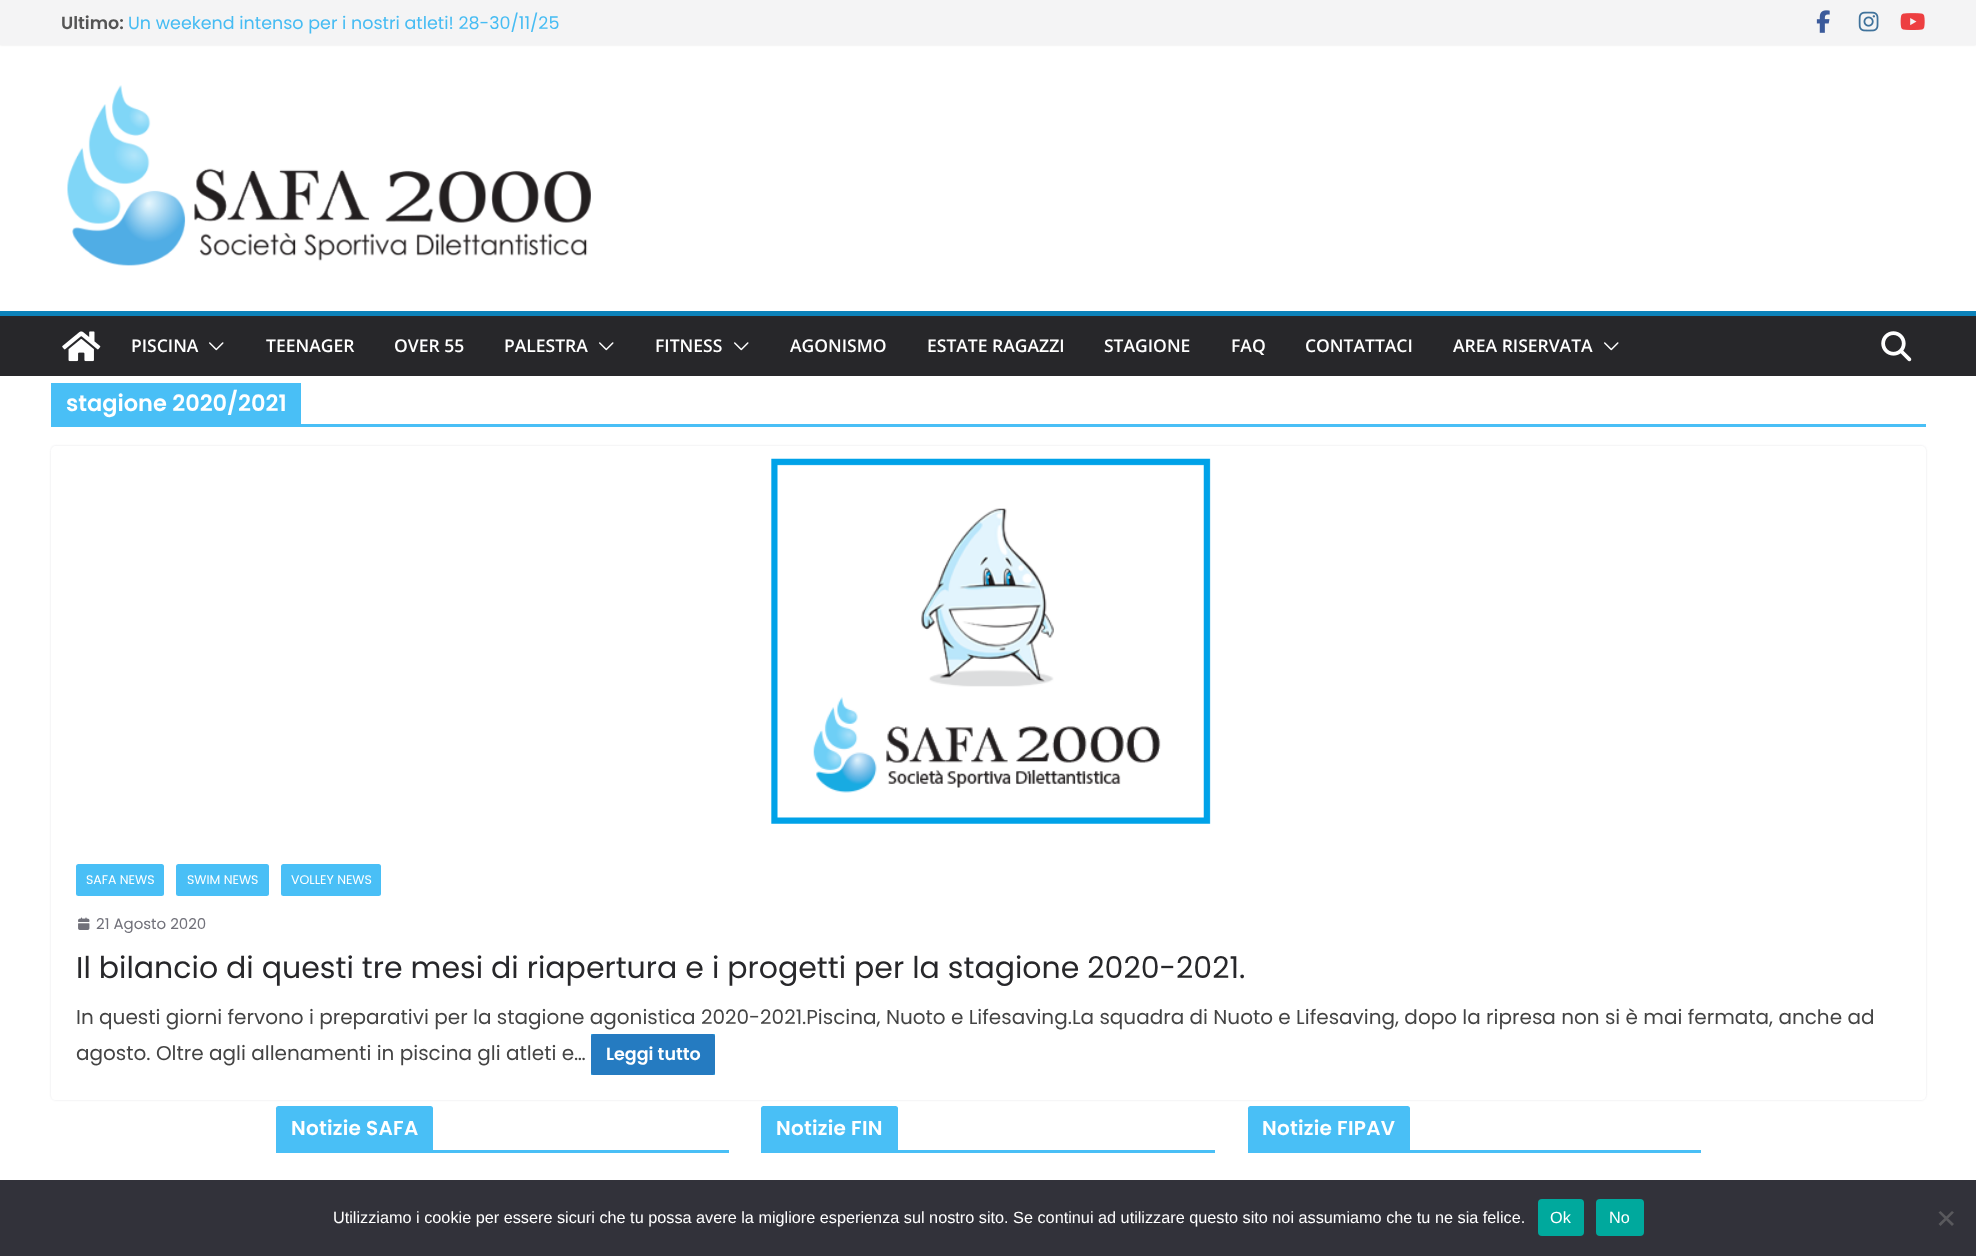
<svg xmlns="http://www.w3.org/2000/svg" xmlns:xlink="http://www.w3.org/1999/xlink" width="1976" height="1256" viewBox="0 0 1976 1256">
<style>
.cls-1{font:600 17.5px Poppins;fill:#555555}
.cls-2{font:17.5px Poppins;fill:#46bcf3}
.cls-3{font:600 17.5px Open Sans;fill:#ffffff}
.cls-4{font:600 22.5px Poppins;fill:#ffffff}
.cls-5{font:12.5px Poppins;fill:#ffffff}
.cls-6{font:15px Poppins;fill:#71717a}
.cls-7{font:30px Poppins;fill:#27272a}
.cls-8{font:20px Poppins;fill:#444444}
.cls-9{font:600 17.5px Poppins;fill:#ffffff}
.cls-10{font:600 20px Poppins;letter-spacing:0.25px;fill:#ffffff}
.cls-11{font:16.25px Liberation Sans;fill:#ffffff}
</style>
<defs>
<clipPath id="clip1"><path d="M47 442H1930V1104H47ZM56 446H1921C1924 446 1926 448 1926 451V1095C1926 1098 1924 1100 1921 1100H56C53 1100 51 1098 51 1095V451C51 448 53 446 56 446Z" clip-rule="evenodd"/></clipPath>
</defs>
<rect width="100%" height="100%" fill="#ffffff"/>
<rect fill="#000000" fill-opacity="0.1" filter="blur(1px)" x="0" y="0" width="1976" height="45"/>
<rect fill="#f4f4f5" x="0" y="0" width="1976" height="45"/>
<image xlink:href="image0.png" x="1816" y="10" width="14" height="23"/>
<image xlink:href="image1.png" x="1858" y="11" width="21" height="21"/>
<image xlink:href="image2.png" x="1900" y="13" width="25" height="17"/>
<image xlink:href="image3.png" x="67" y="85" width="524" height="181"/>
<rect fill="#27272a" x="0" y="316" width="1976" height="60"/>
<rect fill="#0c82ba" x="0" y="311" width="1976" height="5"/>
<image xlink:href="image4.png" x="62" y="331" width="39" height="31"/>
<image xlink:href="image5.png" x="209" y="342" width="15" height="9"/>
<image xlink:href="image5.png" x="599" y="342" width="15" height="9"/>
<image xlink:href="image5.png" x="734" y="342" width="15" height="9"/>
<image xlink:href="image5.png" x="1604" y="342" width="15" height="9"/>
<image xlink:href="image6.png" x="1881" y="331" width="31" height="31"/>
<rect fill="#49bff6" x="51" y="424" width="1875" height="3"/>
<rect fill="#49bff6" x="51" y="383" width="250" height="41"/>
<g clip-path="url(#clip1)">
<rect fill="#e4e4e7" filter="blur(1px)" x="51" y="446" width="1875" height="654" rx="5"/>
</g>
<image xlink:href="image7.png" x="771" y="458" width="440" height="366"/>
<rect fill="#49bff6" x="76" y="864" width="88" height="32" rx="2.5"/>
<rect fill="#49bff6" x="176" y="864" width="93" height="32" rx="2.5"/>
<rect fill="#49bff6" x="281" y="864" width="100" height="32" rx="2.5"/>
<image xlink:href="image8.png" x="78" y="917" width="12" height="13"/>
<rect fill="#49bff6" x="591" y="1034" width="124" height="41"/>
<rect fill="#257bc1" x="591" y="1034" width="124" height="41" rx="2.5"/>
<rect fill="#49bff6" x="276" y="1150" width="453" height="3"/>
<path fill="#49bff6" d="M278.5 1106H430.5C432 1106 433 1107 433 1108.5V1150H276V1108.5C276 1107 277 1106 278.5 1106Z"/>
<rect fill="#49bff6" x="761" y="1150" width="454" height="3"/>
<path fill="#49bff6" d="M763.5 1106H895.5C897 1106 898 1107 898 1108.5V1150H761V1108.5C761 1107 762 1106 763.5 1106Z"/>
<rect fill="#49bff6" x="1248" y="1150" width="453" height="3"/>
<path fill="#49bff6" d="M1250.5 1106H1407.5C1409 1106 1410 1107 1410 1108.5V1150H1248V1108.5C1248 1107 1249 1106 1250.5 1106Z"/>
<rect fill="#32323a" x="0" y="1180" width="1976" height="76"/>
<rect fill="#00a99d" x="1538" y="1199" width="46" height="37" rx="4"/>
<rect fill="#00a99d" x="1596" y="1199" width="48" height="37" rx="4"/>
<path fill="#59595d" d="M1952 1211L1954 1212.5L1940.5 1226L1938.5 1224Z"/>
<path fill="#59595d" d="M1938.5 1212.5L1940.5 1211L1954 1224L1952 1226Z"/>
<text class="cls-1" x="61" y="29">Ultimo:</text>
<text class="cls-2" x="128" y="29">Un weekend intenso per i nostri atleti! 28-30/11/25</text>
<text class="cls-3" x="131" y="352">PISCINA</text>
<text class="cls-3" x="266" y="352">TEENAGER</text>
<text class="cls-3" x="394" y="352">OVER 55</text>
<text class="cls-3" x="504" y="352">PALESTRA</text>
<text class="cls-3" x="655" y="352">FITNESS</text>
<text class="cls-3" x="790" y="352">AGONISMO</text>
<text class="cls-3" x="927" y="352">ESTATE RAGAZZI</text>
<text class="cls-3" x="1104" y="352">STAGIONE</text>
<text class="cls-3" x="1231" y="352">FAQ</text>
<text class="cls-3" x="1305" y="352">CONTATTACI</text>
<text class="cls-3" x="1453" y="352">AREA RISERVATA</text>
<text class="cls-4" x="66" y="411">stagione 2020/2021</text>
<text class="cls-5" x="86" y="884">SAFA NEWS</text>
<text class="cls-5" x="187" y="884">SWIM NEWS</text>
<text class="cls-5" x="291" y="884">VOLLEY NEWS</text>
<text class="cls-6" x="96" y="929">21 Agosto 2020</text>
<text class="cls-7" x="76" y="978">Il bilancio di questi tre mesi di riapertura e i progetti per la stagione 2020-2021.</text>
<text class="cls-8"><tspan x="76" y="1024">In questi giorni fervono i preparativi per la stagione agonistica 2020-2021.Piscina, Nuoto e Lifesaving.La squadra di Nuoto e Lifesaving, dopo la ripresa non si è mai fermata, anche ad</tspan><tspan x="76" y="1060">agosto. Oltre agli allenamenti in piscina gli atleti e…</tspan></text>
<text class="cls-9" x="606" y="1060">Leggi tutto</text>
<text class="cls-10" x="291" y="1135">Notizie SAFA</text>
<text class="cls-10" x="776" y="1135">Notizie FIN</text>
<text class="cls-10" x="1262" y="1135">Notizie FIPAV</text>
<text class="cls-11" x="333" y="1223">Utilizziamo i cookie per essere sicuri che tu possa avere la migliore esperienza sul nostro sito. Se continui ad utilizzare questo sito noi assumiamo che tu ne sia felice.</text>
<text class="cls-11" x="1550" y="1223">Ok</text>
<text class="cls-11" x="1609" y="1223">No</text>
</svg>
